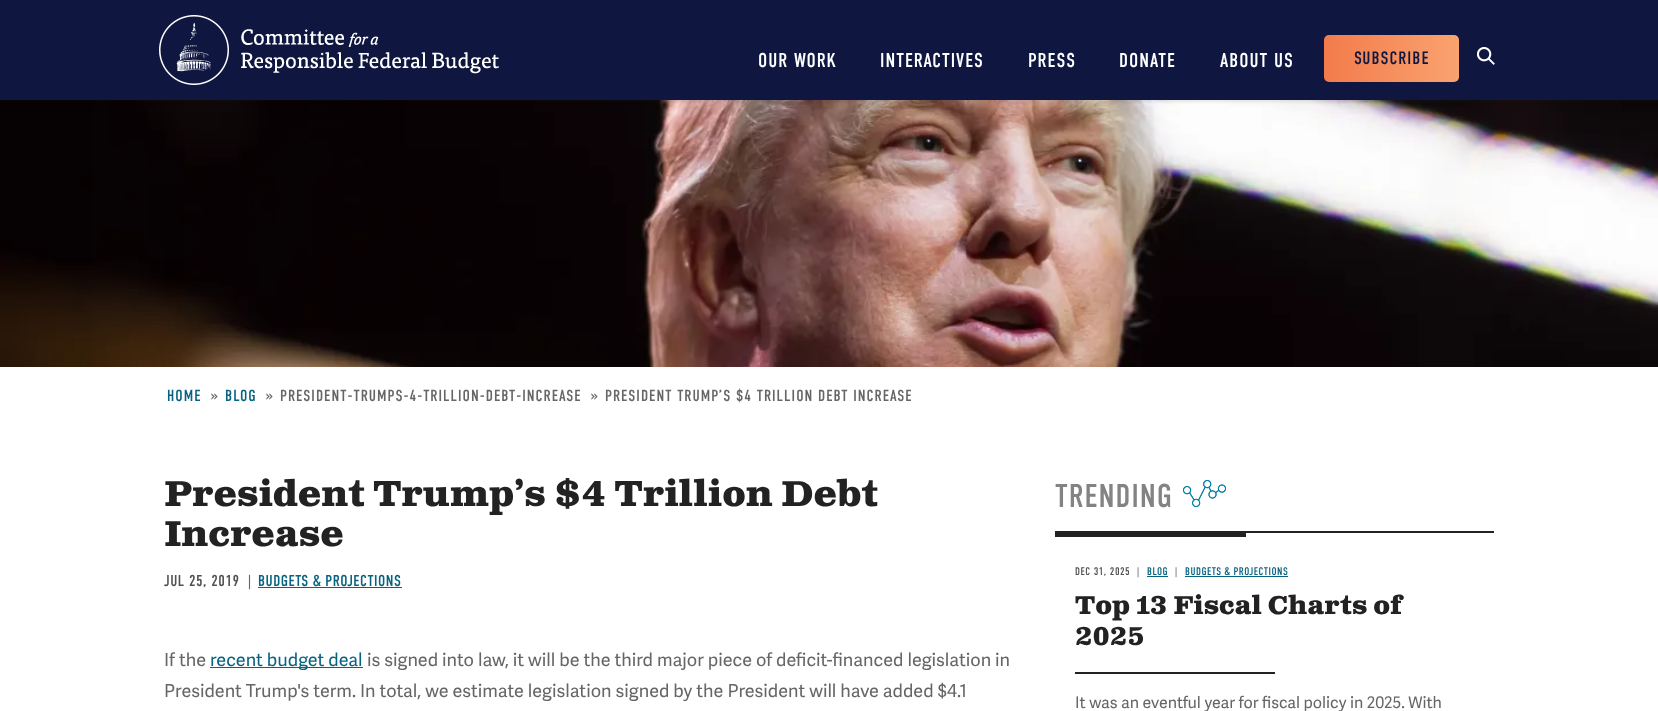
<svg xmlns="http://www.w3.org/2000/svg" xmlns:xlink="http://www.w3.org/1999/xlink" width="1658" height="711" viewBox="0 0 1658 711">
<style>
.cls-1{font:20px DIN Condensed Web;letter-spacing:1px;fill:#ffffff}
.cls-2{font:18px DIN Condensed Web;letter-spacing:1px;fill:#0f1741}
.cls-3{font:16px DIN Condensed Web;letter-spacing:1px;fill:#086381}
.cls-4{font:16px DIN Condensed Web;letter-spacing:1px;fill:#666666}
.cls-5{font:bold 36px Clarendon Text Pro;fill:#222222}
.cls-6{font:15.75px DIN Condensed Web;letter-spacing:0.5px;fill:#525252}
.cls-7{font:15.75px DIN Condensed Web;letter-spacing:0.5px;fill:#666666}
.cls-8{font:15.75px DIN Condensed Web;letter-spacing:0.5px;fill:#086381}
.cls-9{font:18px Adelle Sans;fill:#666666}
.cls-10{font:18px Adelle Sans;fill:#086381}
.cls-11{font:33px DIN Condensed Web;letter-spacing:1px;fill:#848282}
.cls-12{font:11px DIN Condensed Web;letter-spacing:0.5px;fill:#525252}
.cls-13{font:11px DIN Condensed Web;letter-spacing:0.5px;fill:#666666}
.cls-14{font:11px DIN Condensed Web;letter-spacing:0.5px;fill:#086381}
.cls-15{font:bold 25.75px Clarendon Text Pro;fill:#222222}
.cls-16{font:16px Adelle Sans;fill:#666666}
</style>
<defs>
<linearGradient id="g1" gradientUnits="userSpaceOnUse" x1="1324" y1="59" x2="1459" y2="58"><stop offset="0" stop-color="#f37b4b"/><stop offset="1" stop-color="#faa370"/></linearGradient>
</defs>
<rect width="100%" height="100%" fill="#ffffff"/>
<image xlink:href="image2.png" x="0" y="100" width="1658" height="267"/>
<rect fill="#222222" fill-opacity="0.1" filter="blur(1.5px)" x="0" y="2" width="1658" height="100"/>
<rect fill="#0f1741" x="0" y="0" width="1658" height="100"/>
<image xlink:href="image0.png" x="159" y="15" width="340" height="70"/>
<rect fill="url(#g1)" x="1324" y="35" width="135" height="47" rx="5"/>
<image xlink:href="image1.png" x="1477" y="47" width="18" height="18"/>
<rect fill="#086381" x="258" y="587" width="144" height="1"/>
<rect fill="#086381" x="210" y="667" width="153" height="1"/>
<rect fill="#222222" x="1055" y="531" width="439" height="2"/>
<rect fill="#222222" x="1055" y="533" width="191" height="4"/>
<image xlink:href="image3.png" x="1183" y="480" width="43" height="27"/>
<rect fill="#086381" x="1147" y="576" width="21" height="1"/>
<rect fill="#086381" x="1185" y="576" width="103" height="1"/>
<rect fill="#222222" x="1075" y="672" width="200" height="2"/>
<text class="cls-1" x="758" y="67">OUR WORK</text>
<text class="cls-1" x="880" y="67">INTERACTIVES</text>
<text class="cls-1" x="1028" y="67">PRESS</text>
<text class="cls-1" x="1119" y="67">DONATE</text>
<text class="cls-1" x="1220" y="67">ABOUT US</text>
<text class="cls-2" x="1354" y="64">SUBSCRIBE</text>
<text class="cls-3" x="167" y="401">HOME</text>
<text class="cls-4" x="211" y="401">»</text>
<text class="cls-3" x="225" y="401">BLOG</text>
<text class="cls-4" x="266" y="401">»</text>
<text class="cls-4" x="280" y="401">PRESIDENT-TRUMPS-4-TRILLION-DEBT-INCREASE</text>
<text class="cls-4" x="591" y="401">»</text>
<text class="cls-4" x="605" y="401">PRESIDENT TRUMP’S $4 TRILLION DEBT INCREASE</text>
<text class="cls-5"><tspan x="164" y="506">President Trump’s $4 Trillion Debt</tspan><tspan x="164" y="546">Increase</tspan></text>
<text class="cls-6" x="164" y="586">JUL 25, 2019</text>
<text class="cls-7" x="248" y="586">|</text>
<text class="cls-8" x="258" y="586">BUDGETS &amp; PROJECTIONS</text>
<text class="cls-9" x="164" y="666">If the</text>
<text class="cls-10" x="210" y="666">recent budget deal</text>
<text class="cls-9" x="367" y="666">is signed into law, it will be the third major piece of deficit-financed legislation in</text>
<text class="cls-9" x="164" y="697">President Trump's term. In total, we estimate legislation signed by the President will have added $4.1</text>
<text class="cls-11" x="1055" y="507">TRENDING</text>
<text class="cls-12" x="1075" y="575">DEC 31, 2025</text>
<text class="cls-13" x="1137" y="575">|</text>
<text class="cls-14" x="1147" y="575">BLOG</text>
<text class="cls-13" x="1175" y="575">|</text>
<text class="cls-14" x="1185" y="575">BUDGETS &amp; PROJECTIONS</text>
<text class="cls-15"><tspan x="1075" y="614">Top 13 Fiscal Charts of</tspan><tspan x="1075" y="645">2025</tspan></text>
<text class="cls-16" x="1075" y="708">It was an eventful year for fiscal policy in 2025. With</text>
</svg>
